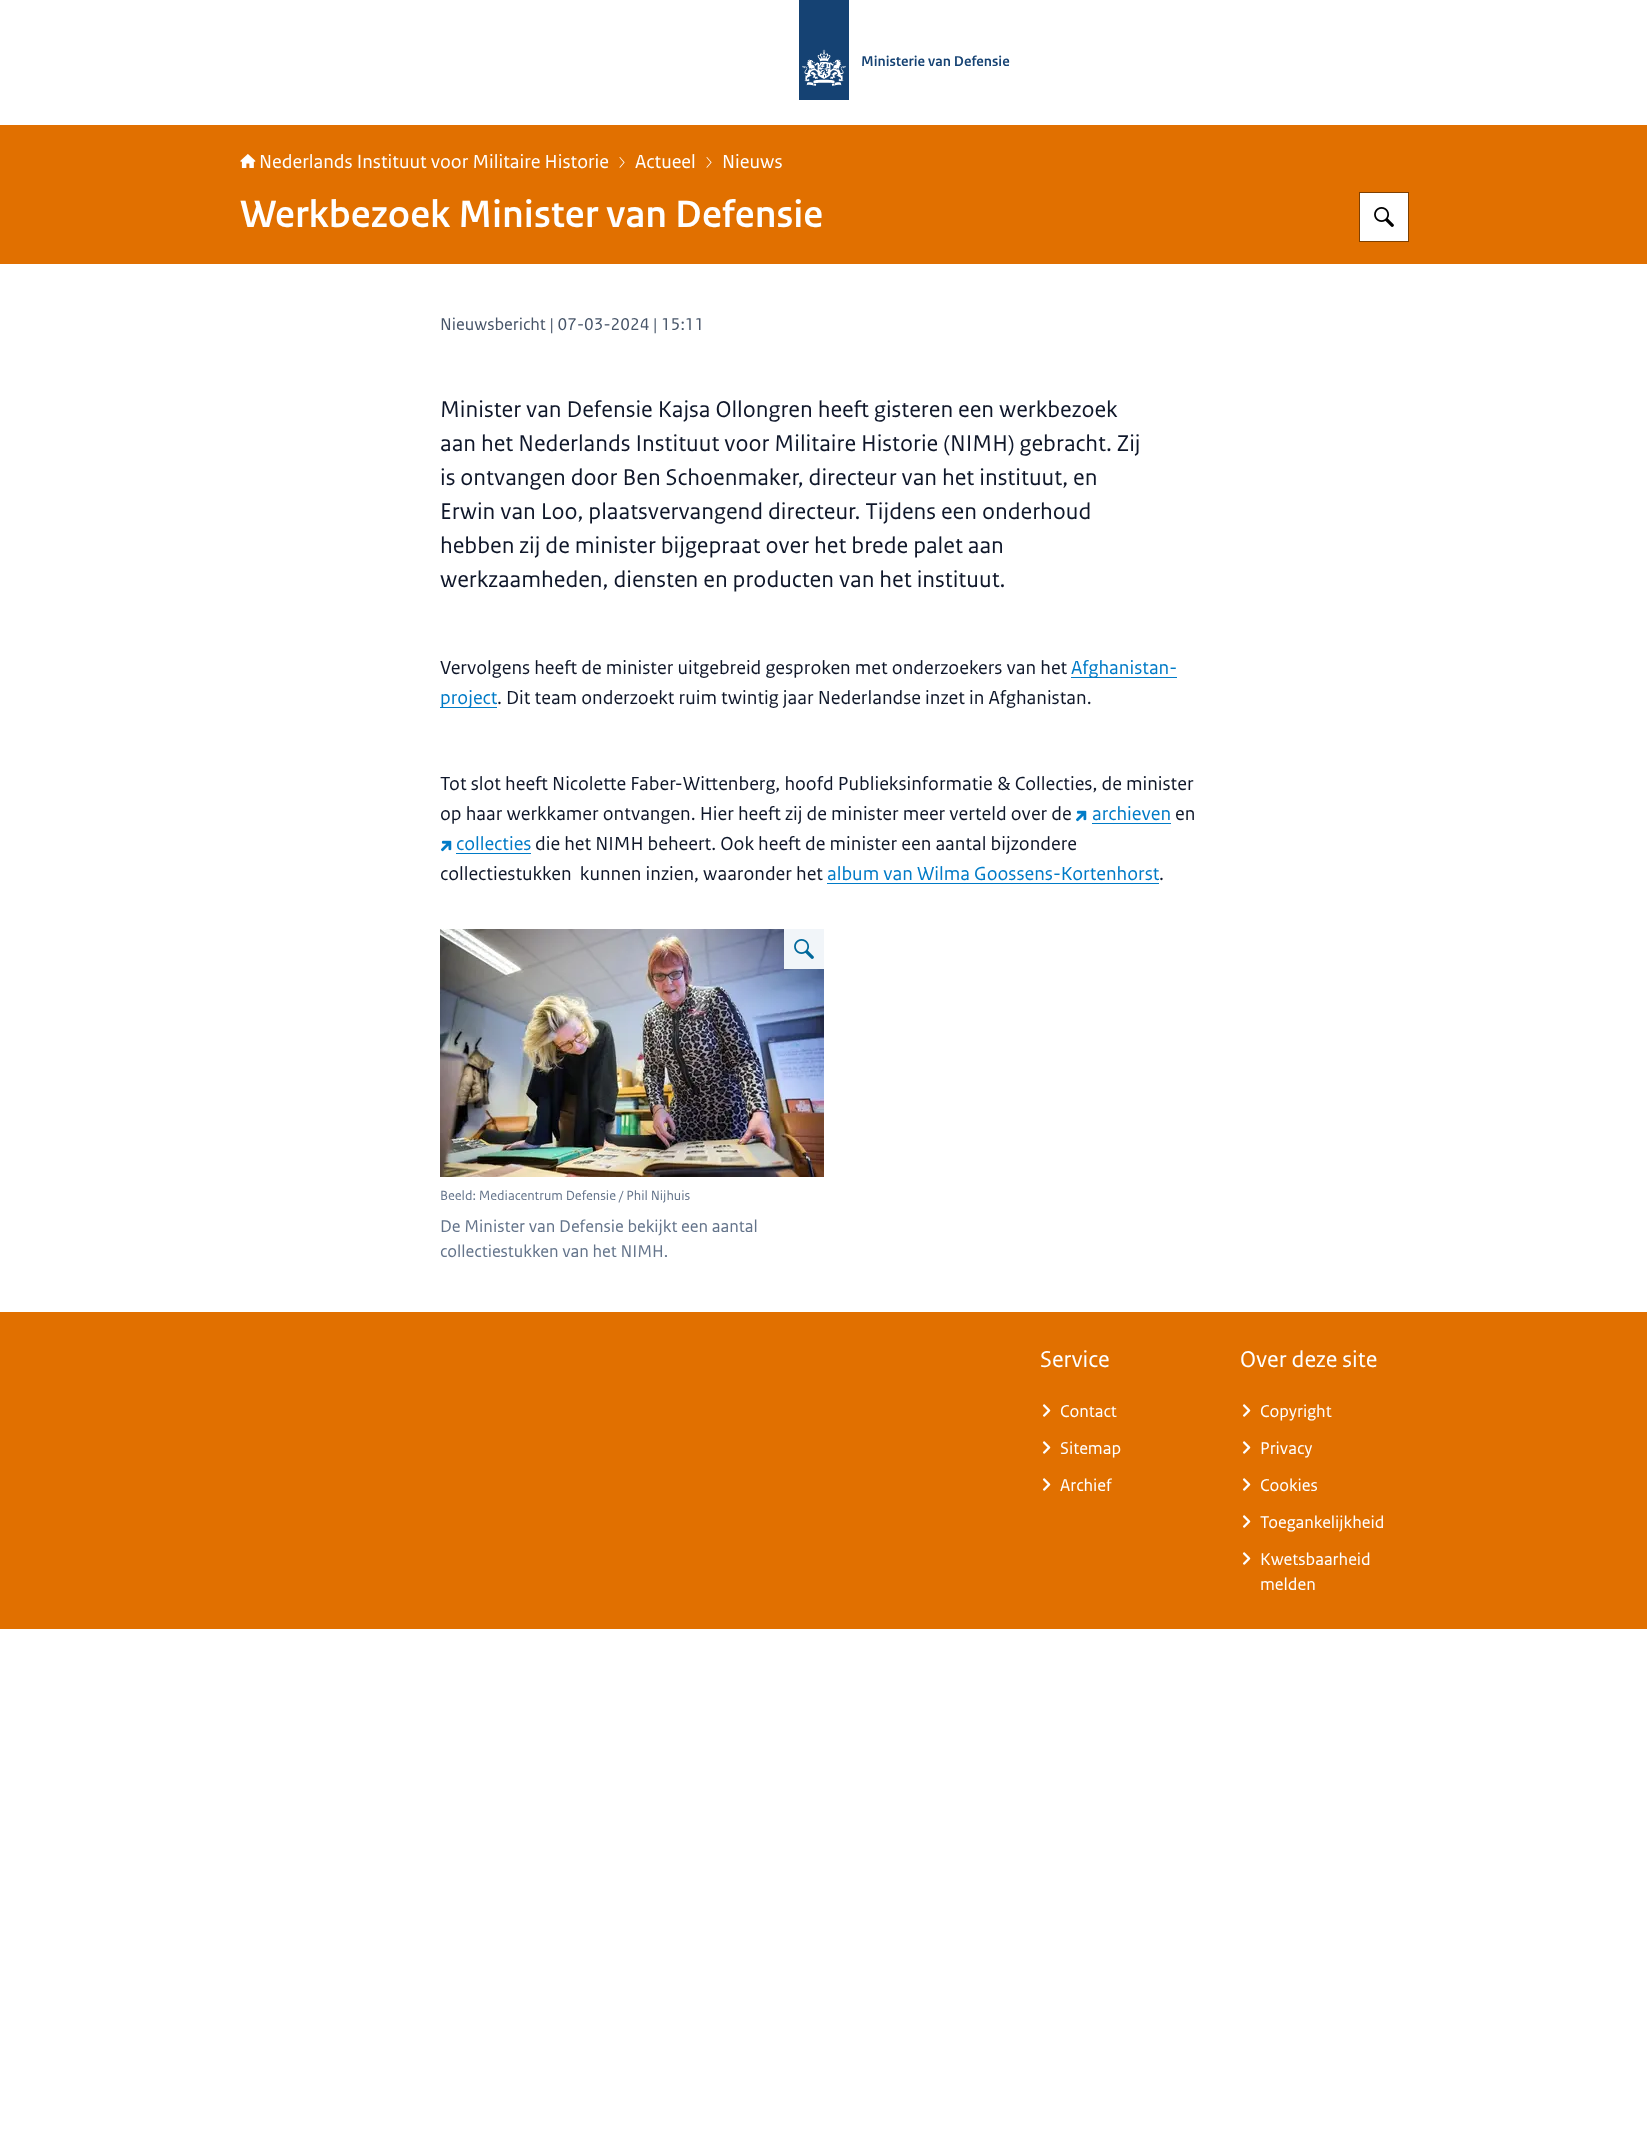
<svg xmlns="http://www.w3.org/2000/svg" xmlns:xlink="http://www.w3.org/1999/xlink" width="1647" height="2153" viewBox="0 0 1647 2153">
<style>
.cls-1{font:600 15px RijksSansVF;fill:#154273}
.cls-2{font:20px RijksSansVF;fill:#ffffff}
.cls-3{font:600 40px 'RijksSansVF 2';fill:#ffffff}
.cls-4{font:18px RijksSansVF;fill:#475569}
.cls-5{font:24px RijksSansVF;fill:#0f172a}
.cls-6{font:20px RijksSansVF;fill:#0f172a}
.cls-7{font:20px RijksSansVF;fill:#007bc7}
.cls-8{font:14px RijksSansVF;fill:#64748b}
.cls-9{font:18px RijksSansVF;fill:#64748b}
.cls-10{font:24px RijksSansVF;fill:#ffffff}
.cls-11{font:18px RijksSansVF;fill:#ffffff}
</style>
<rect width="100%" height="100%" fill="#ffffff"/>
<image xlink:href="image0.png" x="799" y="0" width="50" height="100"/>
<rect fill="#e17000" x="0" y="125" width="1647" height="139"/>
<image xlink:href="image1.png" x="240" y="154" width="16" height="14"/>
<image xlink:href="image2.png" x="619" y="157" width="6" height="11"/>
<image xlink:href="image2.png" x="706" y="157" width="6" height="11"/>
<rect fill="#000000" fill-opacity="0.44" filter="blur(0.5px)" x="1359" y="192" width="50" height="50"/>
<rect fill="#ffffff" x="1360" y="193" width="48" height="48"/>
<image xlink:href="image3.png" x="1374" y="207" width="20" height="20"/>
<rect fill="#007bc7" x="1071" y="677" width="106" height="1"/>
<rect fill="#007bc7" x="440" y="707" width="57" height="1"/>
<image xlink:href="image4.png" x="1076" y="810" width="11" height="12"/>
<rect fill="#007bc7" x="1092" y="823" width="79" height="1"/>
<image xlink:href="image4.png" x="441" y="840" width="11" height="12"/>
<rect fill="#007bc7" x="456" y="853" width="75" height="1"/>
<rect fill="#007bc7" x="827" y="883" width="332" height="1"/>
<image xlink:href="image5.png" x="440" y="929" width="384" height="248"/>
<rect fill="#f1f5f9" x="784" y="929" width="40" height="40"/>
<image xlink:href="image6.png" x="794" y="939" width="20" height="20"/>
<rect fill="#e17000" x="0" y="1312" width="1647" height="317"/>
<image xlink:href="image7.png" x="1042" y="1404" width="9" height="13"/>
<image xlink:href="image7.png" x="1042" y="1441" width="9" height="13"/>
<image xlink:href="image7.png" x="1042" y="1478" width="9" height="13"/>
<image xlink:href="image7.png" x="1242" y="1404" width="9" height="13"/>
<image xlink:href="image7.png" x="1242" y="1441" width="9" height="13"/>
<image xlink:href="image7.png" x="1242" y="1478" width="9" height="13"/>
<image xlink:href="image7.png" x="1242" y="1515" width="9" height="13"/>
<image xlink:href="image7.png" x="1242" y="1552" width="9" height="13"/>
<text class="cls-1" x="861" y="66">Ministerie van Defensie</text>
<text class="cls-2" x="259" y="168">Nederlands Instituut voor Militaire Historie</text>
<text class="cls-2" x="635" y="168">Actueel</text>
<text class="cls-2" x="722" y="168">Nieuws</text>
<text class="cls-3" x="240" y="227">Werkbezoek Minister van Defensie</text>
<text class="cls-4" x="440" y="330">Nieuwsbericht | 07-03-2024 | 15:11</text>
<text class="cls-5"><tspan x="440" y="417">Minister van Defensie Kajsa Ollongren heeft gisteren een werkbezoek</tspan><tspan x="440" y="451">aan het Nederlands Instituut voor Militaire Historie (NIMH) gebracht. Zij</tspan><tspan x="440" y="485">is ontvangen door Ben Schoenmaker, directeur van het instituut, en</tspan><tspan x="440" y="519">Erwin van Loo, plaatsvervangend directeur. Tijdens een onderhoud</tspan><tspan x="440" y="553">hebben zij de minister bijgepraat over het brede palet aan</tspan><tspan x="440" y="587">werkzaamheden, diensten en producten van het instituut.</tspan></text>
<text class="cls-6" x="440" y="674">Vervolgens heeft de minister uitgebreid gesproken met onderzoekers van het</text>
<text class="cls-7" x="1071" y="674">Afghanistan-</text>
<text class="cls-7" x="440" y="704">project</text>
<text class="cls-6" x="497" y="704">. Dit team onderzoekt ruim twintig jaar Nederlandse inzet in Afghanistan.</text>
<text class="cls-6"><tspan x="440" y="790">Tot slot heeft Nicolette Faber-Wittenberg, hoofd Publieksinformatie &amp; Collecties, de minister</tspan><tspan x="440" y="820">op haar werkkamer ontvangen. Hier heeft zij de minister meer verteld over de</tspan></text>
<text class="cls-7" x="1092" y="820">archieven</text>
<text class="cls-6" x="1175" y="820">en</text>
<text class="cls-7" x="456" y="850">collecties</text>
<text class="cls-6" x="535" y="850">die het NIMH beheert. Ook heeft de minister een aantal bijzondere</text>
<text class="cls-6" xml:space="preserve" x="440" y="880">collectiestukken  kunnen inzien, waaronder het</text>
<text class="cls-7" x="827" y="880">album van Wilma Goossens-Kortenhorst</text>
<text class="cls-6" x="1159" y="880">.</text>
<text class="cls-8" x="440" y="1200">Beeld: Mediacentrum Defensie / Phil Nijhuis</text>
<text class="cls-9"><tspan x="440" y="1232">De Minister van Defensie bekijkt een aantal</tspan><tspan x="440" y="1257">collectiestukken van het NIMH.</tspan></text>
<text class="cls-10" x="1040" y="1367">Service</text>
<text class="cls-11" x="1060" y="1417">Contact</text>
<text class="cls-11" x="1060" y="1454">Sitemap</text>
<text class="cls-11" x="1060" y="1491">Archief</text>
<text class="cls-10" x="1240" y="1367">Over deze site</text>
<text class="cls-11" x="1260" y="1417">Copyright</text>
<text class="cls-11" x="1260" y="1454">Privacy</text>
<text class="cls-11" x="1260" y="1491">Cookies</text>
<text class="cls-11" x="1260" y="1528">Toegankelijkheid</text>
<text class="cls-11"><tspan x="1260" y="1565">Kwetsbaarheid</tspan><tspan x="1260" y="1590">melden</tspan></text>
</svg>
